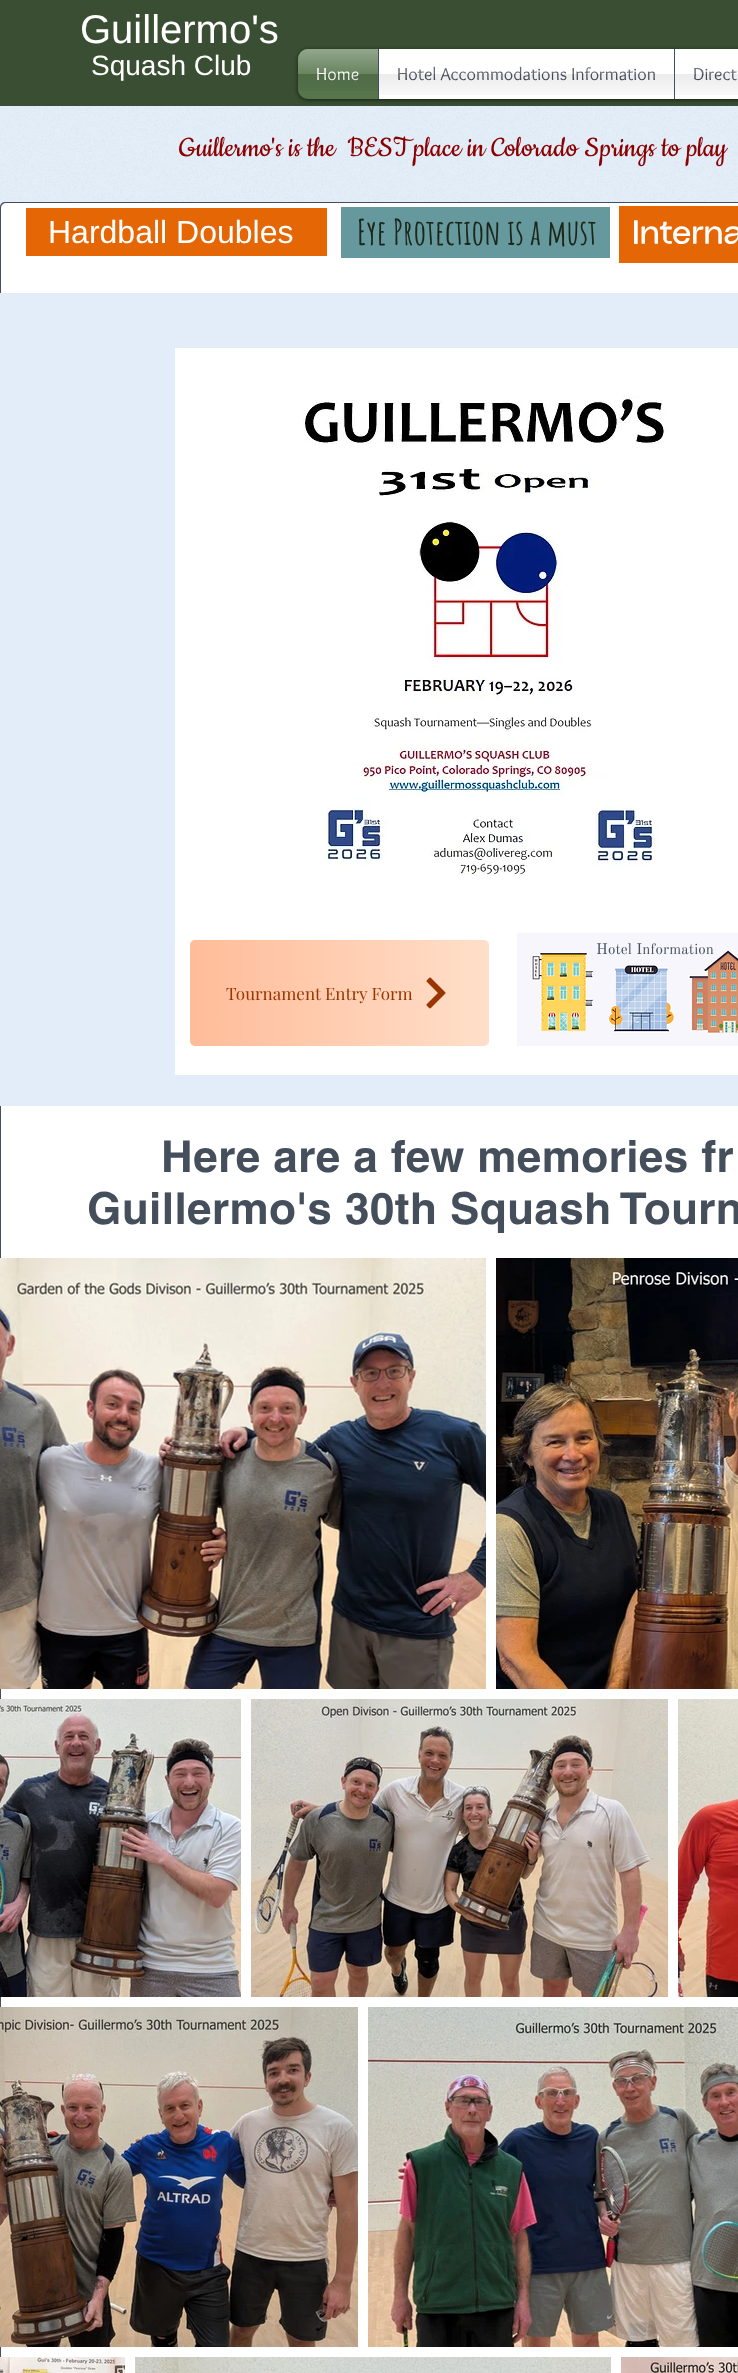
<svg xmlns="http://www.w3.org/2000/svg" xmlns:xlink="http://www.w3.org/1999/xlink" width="738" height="2373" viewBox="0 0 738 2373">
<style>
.cls-1{font:40px Liberation Sans;fill:#ffffff}
.cls-2{font:28px Liberation Sans;fill:#ffffff}
.cls-3{font:18px Overlock;fill:#ffffff}
.cls-4{font:18px Overlock;fill:#454f5c}
.cls-5{font:32px Cookie;fill:#8b0000}
.cls-6{font:32px Liberation Sans;fill:#ffffff}
.cls-7{font:bold 35px Amatic SC;fill:#1c2719}
.cls-8{font:34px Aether;fill:#ffffff}
.cls-9{font:15px Old Standard TT;letter-spacing:0.1px;fill:#454f5c}
.cls-10{font:17px Playfair Display;fill:#993500}
.cls-11{font:bold 44px helvetica;letter-spacing:0.45px;fill:#454f5c}
</style>
<defs>
<linearGradient id="g1" gradientUnits="userSpaceOnUse" x1="190" y1="993" x2="489" y2="993"><stop offset="0" stop-color="#ffbc99"/><stop offset="1" stop-color="#ffdfc9"/></linearGradient>
</defs>
<rect width="100%" height="100%" fill="#e3edf9"/>
<rect fill="#394e32" x="0" y="0" width="738" height="106"/>
<image xlink:href="image17.png" x="0" y="106" width="738" height="101"/>
<rect fill="#000000" fill-opacity="0.6" filter="blur(2px)" x="298" y="50" width="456" height="50" rx="10"/>
<image xlink:href="image0.png" x="298" y="49" width="10" height="42"/>
<path fill="#56754c" d="M308 49H378V99H308C302.5 99 298 94.5 298 89V59C298 53.5 302.5 49 308 49Z"/>
<rect fill="#ffffff" x="379" y="49" width="295" height="50"/>
<rect fill="#454f5c" x="378" y="49" width="1" height="50"/>
<rect fill="#ffffff" x="675" y="49" width="63" height="50"/>
<rect fill="#454f5c" x="674" y="49" width="1" height="50"/>
<rect fill="#454f5c" x="0" y="202" width="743" height="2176" rx="5"/>
<rect fill="#ffffff" x="1" y="203" width="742" height="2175" rx="5"/>
<rect fill="#e56604" x="26" y="208" width="301" height="48"/>
<rect fill="#65999e" x="341" y="207" width="269" height="51"/>
<rect fill="#e56604" x="619" y="206" width="119" height="57"/>
<rect fill="#e3edf9" x="0" y="293" width="738" height="813"/>
<rect fill="#ffffff" x="175" y="348" width="563" height="727"/>
<image xlink:href="image4.png" x="303" y="396" width="363" height="480"/>
<image xlink:href="image5.png" x="517" y="933" width="221" height="113"/>
<rect fill="url(#g1)" x="190" y="940" width="299" height="106" rx="5"/>
<image xlink:href="image6.png" x="426" y="977" width="20" height="32"/>
<image xlink:href="image7.png" x="0" y="1258" width="486" height="431"/>
<image xlink:href="image8.png" x="496" y="1258" width="242" height="431"/>
<image xlink:href="image9.png" x="0" y="1699" width="241" height="298"/>
<image xlink:href="image10.png" x="251" y="1699" width="417" height="298"/>
<image xlink:href="image11.png" x="678" y="1699" width="60" height="298"/>
<image xlink:href="image12.png" x="0" y="2007" width="358" height="340"/>
<image xlink:href="image13.png" x="368" y="2007" width="370" height="340"/>
<image xlink:href="image14.png" x="0" y="2357" width="125" height="16"/>
<image xlink:href="image15.png" x="135" y="2357" width="476" height="16"/>
<image xlink:href="image16.png" x="621" y="2357" width="117" height="16"/>
<text class="cls-1" x="80" y="43">Guillermo's</text>
<text class="cls-2" x="91" y="75">Squash Club</text>
<text class="cls-3" x="316" y="80">Home</text>
<image xlink:href="image1.png" x="298" y="49" width="80" height="42"/>
<text class="cls-4" x="397" y="80">Hotel Accommodations Information</text>
<image xlink:href="image2.png" x="379" y="66" width="295" height="29"/>
<text class="cls-4" x="693" y="80">Direct</text>
<image xlink:href="image3.png" x="675" y="68" width="63" height="27"/>
<text class="cls-5" xml:space="preserve" x="179" y="156">Guillermo's is the  BEST place in Colorado Springs to play</text>
<text class="cls-6" x="48" y="243">Hardball Doubles</text>
<text class="cls-7" x="357" y="245">Eye Protection is a must</text>
<text class="cls-8" x="632" y="244">Interna</text>
<text class="cls-9" x="596" y="954">Hotel Information</text>
<text class="cls-10" x="226" y="1000">Tournament Entry Form</text>
<text class="cls-11" x="161" y="1172">Here are a few memories fr</text>
<text class="cls-11" x="87" y="1224">Guillermo's 30th Squash Tourn</text>
</svg>
